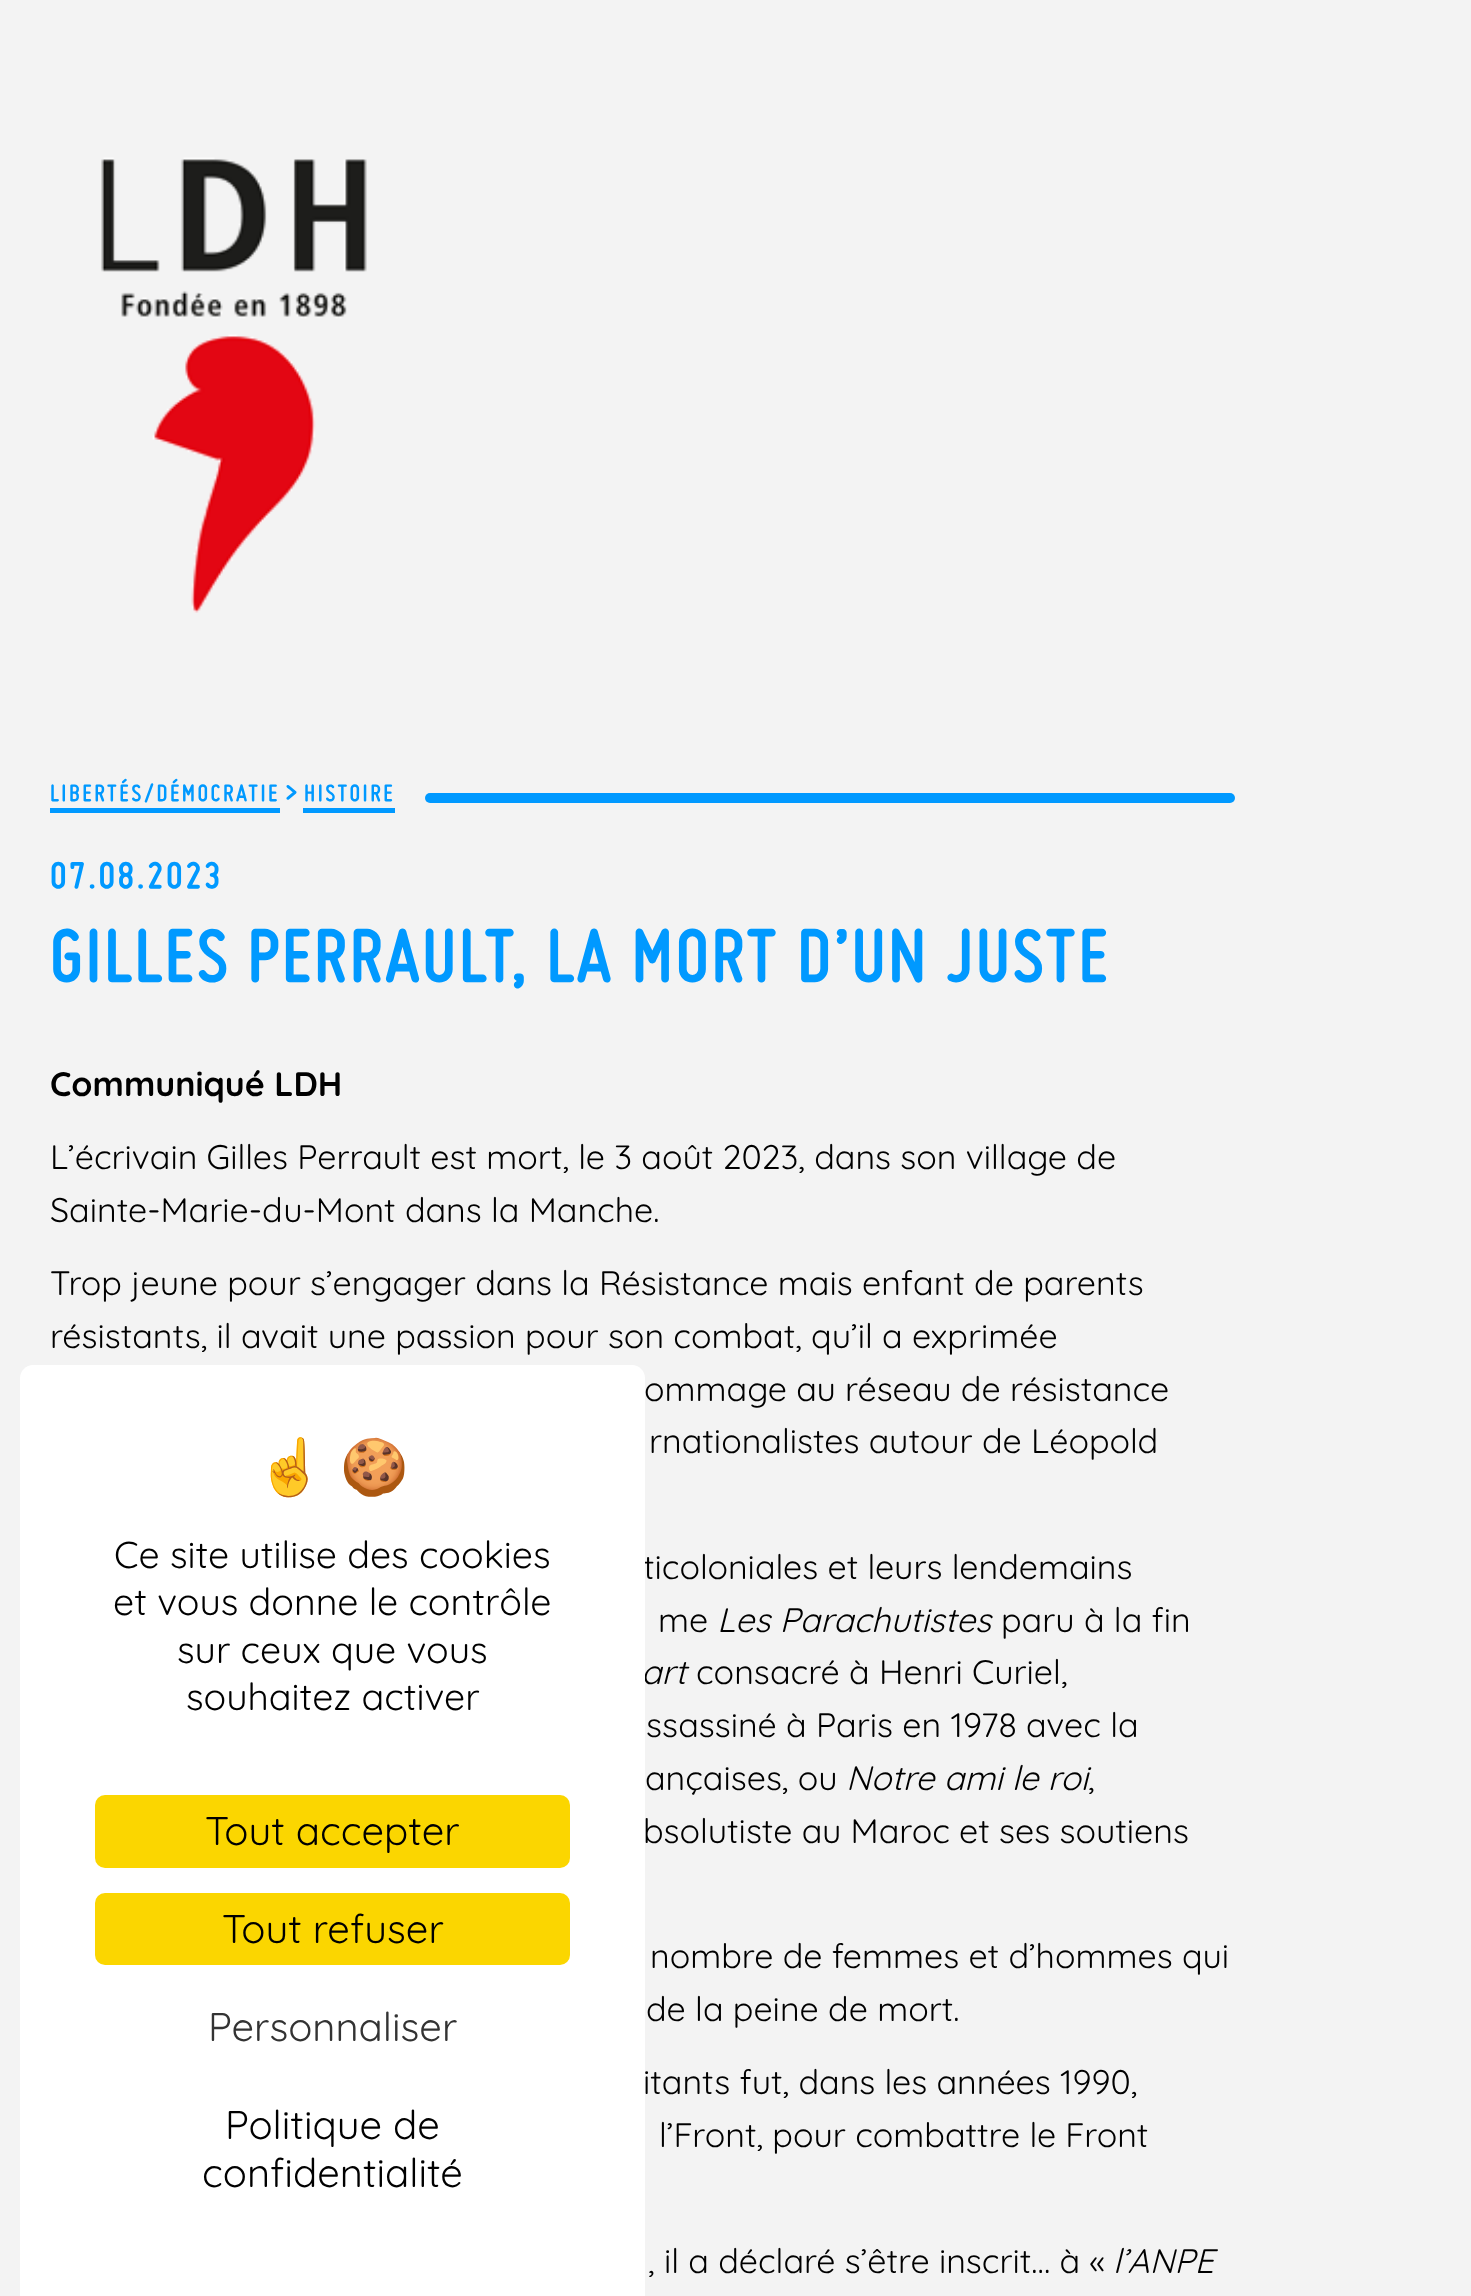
<svg xmlns="http://www.w3.org/2000/svg" xmlns:xlink="http://www.w3.org/1999/xlink" width="1471" height="2296" viewBox="0 0 1471 2296">
<style>
.cls-1{font:italic bold 25.5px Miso;letter-spacing:2.5px;fill:#0099ff}
.cls-2{font:italic bold 30px Miso;fill:#0099ff}
.cls-3{font:italic bold 40px Miso;letter-spacing:2.5px;fill:#0099ff}
.cls-4{font:italic bold 80px Miso;letter-spacing:2.5px;fill:#0099ff}
.cls-5{font:300 34px Quicksand;fill:#000000}
.cls-6{font:300 34px 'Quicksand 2';fill:#000000}
.cls-7{font:italic 300 34px Quicksand;fill:#000000}
.cls-8{font:55px Noto Color Emoji;fill:#000000}
.cls-9{font:300 37.5px 'Quicksand 2';fill:#000000}
.cls-10{font:300 40px 'Quicksand 2';fill:#000000}
.cls-11{font:300 40px 'Quicksand 2';fill:#333333}
</style>
<rect width="100%" height="100%" fill="#f3f3f3"/>
<image xlink:href="image0.png" x="101" y="157" width="266" height="456"/>
<rect fill="#0099ff" x="50" y="808" width="230" height="5"/>
<rect fill="#0099ff" x="303" y="808" width="92" height="5"/>
<rect fill="#0099ff" x="425" y="793" width="810" height="10" rx="5"/>
<text class="cls-1" x="50" y="801">LIBERTÉS/DÉMOCRATIE</text>
<text class="cls-2" x="285" y="801">&gt;</text>
<text class="cls-1" x="304" y="801">HISTOIRE</text>
<text class="cls-3" x="50" y="888">07.08.2023</text>
<text class="cls-4" x="50" y="981">GILLES PERRAULT, LA MORT D’UN JUSTE</text>
<text class="cls-5" x="50" y="1096">Communiqué LDH</text>
<text class="cls-6"><tspan x="50" y="1169">L’écrivain Gilles Perrault est mort, le 3 août 2023, dans son village de</tspan><tspan x="50" y="1222">Sainte-Marie-du-Mont dans la Manche.</tspan></text>
<text class="cls-6"><tspan x="50" y="1295">Trop jeune pour s’engager dans la Résistance mais enfant de parents</tspan><tspan x="50" y="1348">résistants, il avait une passion pour son combat, qu’il a exprimée</tspan></text>
<text class="cls-6" x="644" y="1401">ommage au réseau de résistance</text>
<text class="cls-6" x="649" y="1453">rnationalistes autour de Léopold</text>
<text class="cls-6" x="643" y="1579">ticoloniales et leurs lendemains</text>
<text class="cls-6" x="658" y="1632">me</text>
<text class="cls-7" x="717" y="1632">Les Parachutistes</text>
<text class="cls-6" x="1001" y="1632">paru à la fin</text>
<text class="cls-7" x="641" y="1684">art</text>
<text class="cls-6" x="696" y="1684">consacré à Henri Curiel,</text>
<text class="cls-6" x="646" y="1737">ssassiné à Paris en 1978 avec la</text>
<text class="cls-6" x="645" y="1790">ançaises, ou</text>
<text class="cls-7" x="846" y="1790">Notre ami le roi</text>
<text class="cls-6" x="1088" y="1790">,</text>
<text class="cls-6" x="643" y="1843">bsolutiste au Maroc et ses soutiens</text>
<text class="cls-6" x="650" y="1968">nombre de femmes et d’hommes qui</text>
<text class="cls-6" x="646" y="2021">de la peine de mort.</text>
<text class="cls-6" x="643" y="2094">itants fut, dans les années 1990,</text>
<text class="cls-6" x="659" y="2147">l’Front, pour combattre le Front</text>
<text class="cls-6" x="648" y="2273">, il a déclaré s’être inscrit… à «</text>
<text class="cls-7" x="1113" y="2273">l’ANPE</text>
<path fill="#ffffff" d="M33 1365H632C639 1365 645 1371 645 1378V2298H20V1378C20 1371 26 1365 33 1365Z"/>
<text class="cls-8" x="256" y="1486">☝️</text>
<text class="cls-8" x="340" y="1486">🍪</text>
<text class="cls-9" x="114" y="1568">Ce site utilise des cookies</text>
<text class="cls-9" x="113" y="1615">et vous donne le contrôle</text>
<text class="cls-9" x="177" y="1663">sur ceux que vous</text>
<text class="cls-9" x="186" y="1710">souhaitez activer</text>
<rect fill="#fbd600" x="95" y="1795" width="475" height="73" rx="10"/>
<text class="cls-10" x="205" y="1845">Tout accepter</text>
<rect fill="#fbd600" x="95" y="1893" width="475" height="72" rx="10"/>
<text class="cls-10" x="222" y="1943">Tout refuser</text>
<text class="cls-11" x="208" y="2041">Personnaliser</text>
<text class="cls-10" x="225" y="2139">Politique de</text>
<text class="cls-10" x="202" y="2187">confidentialité</text>
</svg>
